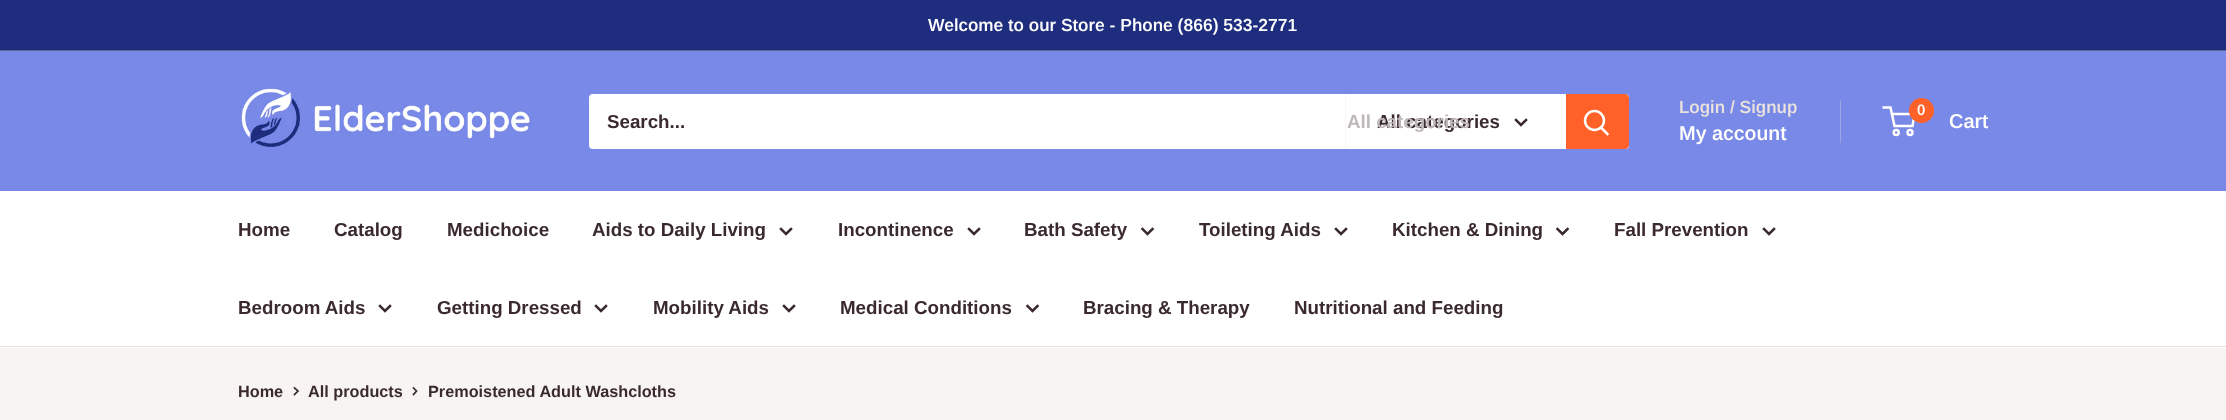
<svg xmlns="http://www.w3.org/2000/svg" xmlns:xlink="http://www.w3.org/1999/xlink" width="2226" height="420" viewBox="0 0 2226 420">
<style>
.cls-1{font:600 17.5px Arimo;fill:#ffffff}
.cls-2{font:bold 18.75px Arimo;fill:#3a2a2f}
.cls-3{font:bold 18.75px Arimo;fill:#beb8ba}
.cls-4{font:600 17.5px Arimo;fill:#e9e2dd}
.cls-5{font:600 20px Arimo;fill:#ffffff}
.cls-6{font:600 15px Arimo;fill:#ffffff}
.cls-7{font:bold 16.25px Arimo;fill:#3a2a2f}
</style>
<rect width="100%" height="100%" fill="#f7f4f2"/>
<rect fill="#1e2d7d" x="0" y="0" width="2226" height="50"/>
<rect fill="#5b639a" x="0" y="50" width="2226" height="1"/>
<rect fill="#7989e7" x="0" y="51" width="2226" height="140"/>
<image xlink:href="image0.png" x="240" y="87" width="293" height="60"/>
<rect fill="#ffffff" x="589" y="94" width="1040" height="55" rx="4"/>
<rect fill="#f8f6f5" x="1345" y="94" width="1" height="55"/>
<path fill="none" stroke="#3a2a2f" stroke-width="2.5" stroke-linecap="square" d="M1526 120L1521 125L1516 120"/>
<path fill="#ff6128" d="M1566 94H1625C1627 94 1629 96 1629 98V145C1629 147 1627 149 1625 149H1566Z"/>
<path fill="none" stroke="#ffffff" stroke-width="2.5" stroke-linecap="square" d="M1607.5 134L1601 127.5"/>
<circle fill="none" stroke="#ffffff" stroke-width="2.5" cx="1594.5" cy="120.5" r="9.5"/>
<rect fill="#9ba4e4" x="1840" y="100" width="1" height="43"/>
<circle fill="none" stroke="#ffffff" stroke-width="2.5" cx="1896.2" cy="132.5" r="2.5"/>
<circle fill="none" stroke="#ffffff" stroke-width="2.5" cx="1910" cy="132.5" r="2.5"/>
<path fill="none" stroke="#ffffff" stroke-width="2.5" d="M1891.5 114H1914.5L1912.5 126H1894.5L1890.5 107.5H1882.5"/>
<circle fill="#ff6128" cx="1921.5" cy="110.5" r="12.5"/>
<rect fill="#ffffff" x="0" y="191" width="2226" height="157"/>
<rect fill="#e7e2de" x="0" y="346" width="2226" height="1"/>
<path fill="none" stroke="#3a2a2f" stroke-width="2.5" stroke-linecap="square" d="M791 229L786 234L781 229"/>
<path fill="none" stroke="#3a2a2f" stroke-width="2.5" stroke-linecap="square" d="M979 229L974 234L969 229"/>
<path fill="none" stroke="#3a2a2f" stroke-width="2.5" stroke-linecap="square" d="M1152.5 229L1147.5 234L1142.5 229"/>
<path fill="none" stroke="#3a2a2f" stroke-width="2.5" stroke-linecap="square" d="M1346 229L1341 234L1336 229"/>
<path fill="none" stroke="#3a2a2f" stroke-width="2.5" stroke-linecap="square" d="M1567.5 229L1562.5 234L1557.5 229"/>
<path fill="none" stroke="#3a2a2f" stroke-width="2.5" stroke-linecap="square" d="M1774 229L1769 234L1764 229"/>
<path fill="none" stroke="#3a2a2f" stroke-width="2.5" stroke-linecap="square" d="M390 306L385 311L380 306"/>
<path fill="none" stroke="#3a2a2f" stroke-width="2.5" stroke-linecap="square" d="M606 306L601 311L596 306"/>
<path fill="none" stroke="#3a2a2f" stroke-width="2.5" stroke-linecap="square" d="M794 306L789 311L784 306"/>
<path fill="none" stroke="#3a2a2f" stroke-width="2.5" stroke-linecap="square" d="M1037.5 306L1032.5 311L1027.5 306"/>
<path fill="none" stroke="#3a2a2f" stroke-width="1.7" stroke-linecap="square" d="M294.5 388L298 391L294.5 394.5"/>
<path fill="none" stroke="#3a2a2f" stroke-width="1.7" stroke-linecap="square" d="M413.5 388L416.5 391L413.5 394.5"/>
<text class="cls-1" x="928" y="31">Welcome to our Store - Phone (866) 533-2771</text>
<text class="cls-2" x="607" y="128">Search...</text>
<text class="cls-2" x="1377" y="128">All categories</text>
<text class="cls-3" x="1347" y="128">All categories</text>
<text class="cls-4" x="1679" y="113">Login / Signup</text>
<text class="cls-5" x="1679" y="140">My account</text>
<text class="cls-6" x="1917" y="115">0</text>
<text class="cls-5" x="1949" y="128">Cart</text>
<text class="cls-2" x="238" y="236">Home</text>
<text class="cls-2" x="334" y="236">Catalog</text>
<text class="cls-2" x="447" y="236">Medichoice</text>
<text class="cls-2" x="592" y="236">Aids to Daily Living</text>
<text class="cls-2" x="838" y="236">Incontinence</text>
<text class="cls-2" x="1024" y="236">Bath Safety</text>
<text class="cls-2" x="1199" y="236">Toileting Aids</text>
<text class="cls-2" x="1392" y="236">Kitchen &amp; Dining</text>
<text class="cls-2" x="1614" y="236">Fall Prevention</text>
<text class="cls-2" x="238" y="314">Bedroom Aids</text>
<text class="cls-2" x="437" y="314">Getting Dressed</text>
<text class="cls-2" x="653" y="314">Mobility Aids</text>
<text class="cls-2" x="840" y="314">Medical Conditions</text>
<text class="cls-2" x="1083" y="314">Bracing &amp; Therapy</text>
<text class="cls-2" x="1294" y="314">Nutritional and Feeding</text>
<text class="cls-7" x="238" y="397">Home</text>
<text class="cls-7" x="308" y="397">All products</text>
<text class="cls-7" x="428" y="397">Premoistened Adult Washcloths</text>
</svg>
